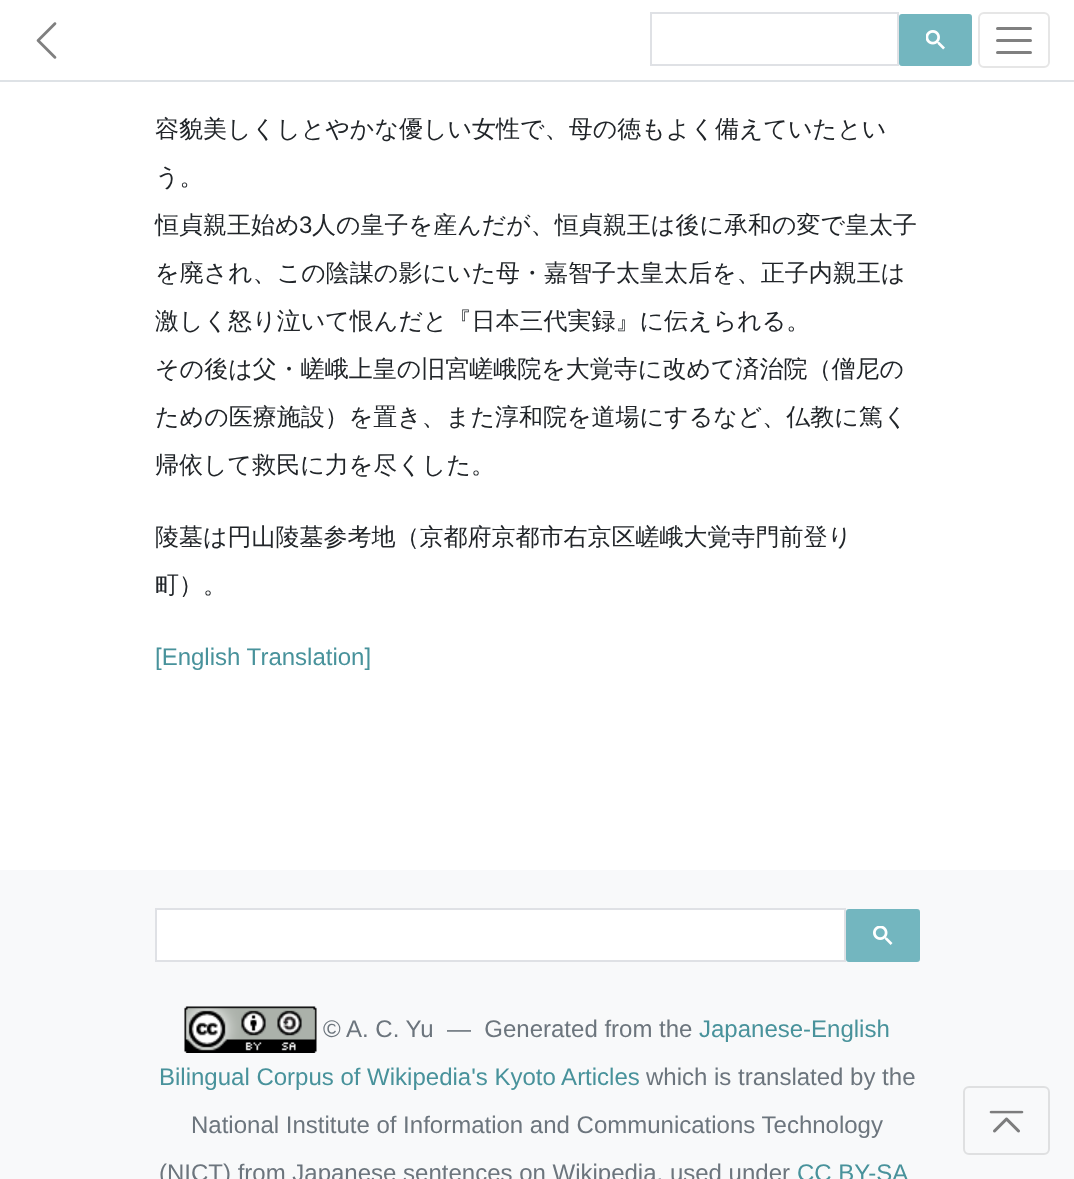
<svg xmlns="http://www.w3.org/2000/svg" xmlns:xlink="http://www.w3.org/1999/xlink" width="1074" height="1179" viewBox="0 0 1074 1179">
<style>
.cls-1{font:500 24px WenQuanYi Zen Hei;fill:#212529}
.cls-2{font:24px Liberation Sans;fill:#212529}
.cls-3{font:24px Liberation Sans;fill:#48929b}
.cls-4{font:24px Liberation Sans;fill:#6c757d}
</style>
<rect width="100%" height="100%" fill="#ffffff"/>
<rect fill="#dee2e6" x="0" y="80" width="1074" height="2"/>
<image xlink:href="image0.png" x="36" y="22" width="21" height="37"/>
<rect fill="none" stroke="#dfe1e5" stroke-width="2" x="651" y="13" width="247" height="52"/>
<rect fill="#73b6bf" stroke="#73b6bf" stroke-width="2" x="900" y="15" width="71" height="50" rx="2"/>
<image xlink:href="image1.png" x="926" y="30" width="19" height="20"/>
<rect fill="none" stroke="#e6e6e6" stroke-width="2" x="979" y="13" width="70" height="54" rx="5"/>
<path fill="none" stroke="#808080" stroke-width="3" stroke-linecap="round" d="M997.5 28.5H1030.5M997.5 40.5H1030.5M997.5 52.5H1030.5"/>
<rect fill="#f8f9fa" x="0" y="870" width="1074" height="309"/>
<rect fill="#ffffff" stroke="#dfe1e5" stroke-width="2" x="156" y="909" width="689" height="52"/>
<rect fill="#73b6bf" stroke="#73b6bf" stroke-width="2" x="847" y="910" width="72" height="51" rx="2"/>
<image xlink:href="image2.png" x="873" y="926" width="20" height="19"/>
<image xlink:href="image3.png" x="184" y="1006" width="133" height="47"/>
<rect fill="none" stroke="#dfe0e1" stroke-width="2" x="964" y="1087" width="85" height="67" rx="5"/>
<image xlink:href="image4.png" x="989" y="1110" width="35" height="23"/>
<text class="cls-1" x="155" y="137">容貌美しくしとやかな優しい女性で、母の徳もよく備えていたとい</text>
<text class="cls-1" x="155" y="185">う。</text>
<text class="cls-1" x="155" y="233">恒貞親王始め</text>
<text class="cls-2" x="299" y="233">3</text>
<text class="cls-1" x="312" y="233">人の皇子を産んだが、恒貞親王は後に承和の変で皇太子</text>
<text class="cls-1" x="155" y="281">を廃され、この陰謀の影にいた母・嘉智子太皇太后を、正子内親王は</text>
<text class="cls-1" x="155" y="329">激しく怒り泣いて恨んだと『日本三代実録』に伝えられる。</text>
<text class="cls-1" x="155" y="377">その後は父・嵯峨上皇の旧宮嵯峨院を大覚寺に改めて済治院（僧尼の</text>
<text class="cls-1" x="155" y="425">ための医療施設）を置き、また淳和院を道場にするなど、仏教に篤く</text>
<text class="cls-1" x="155" y="473">帰依して救民に力を尽くした。</text>
<text class="cls-1" x="155" y="545">陵墓は円山陵墓参考地（京都府京都市右京区嵯峨大覚寺門前登り</text>
<text class="cls-1" x="155" y="593">町）。</text>
<text class="cls-3" x="155" y="665">[English Translation]</text>
<text class="cls-4" xml:space="preserve" x="323" y="1037">© A. C. Yu  —  Generated from the</text>
<text class="cls-3" x="699" y="1037">Japanese-English</text>
<text class="cls-3" x="159" y="1085">Bilingual Corpus of Wikipedia's Kyoto Articles</text>
<text class="cls-4" x="646" y="1085">which is translated by the</text>
<text class="cls-4" x="191" y="1133">National Institute of Information and Communications Technology</text>
<text class="cls-4" x="159" y="1181">(NICT) from Japanese sentences on Wikipedia, used under</text>
<text class="cls-3" x="797" y="1181">CC BY-SA</text>
</svg>
